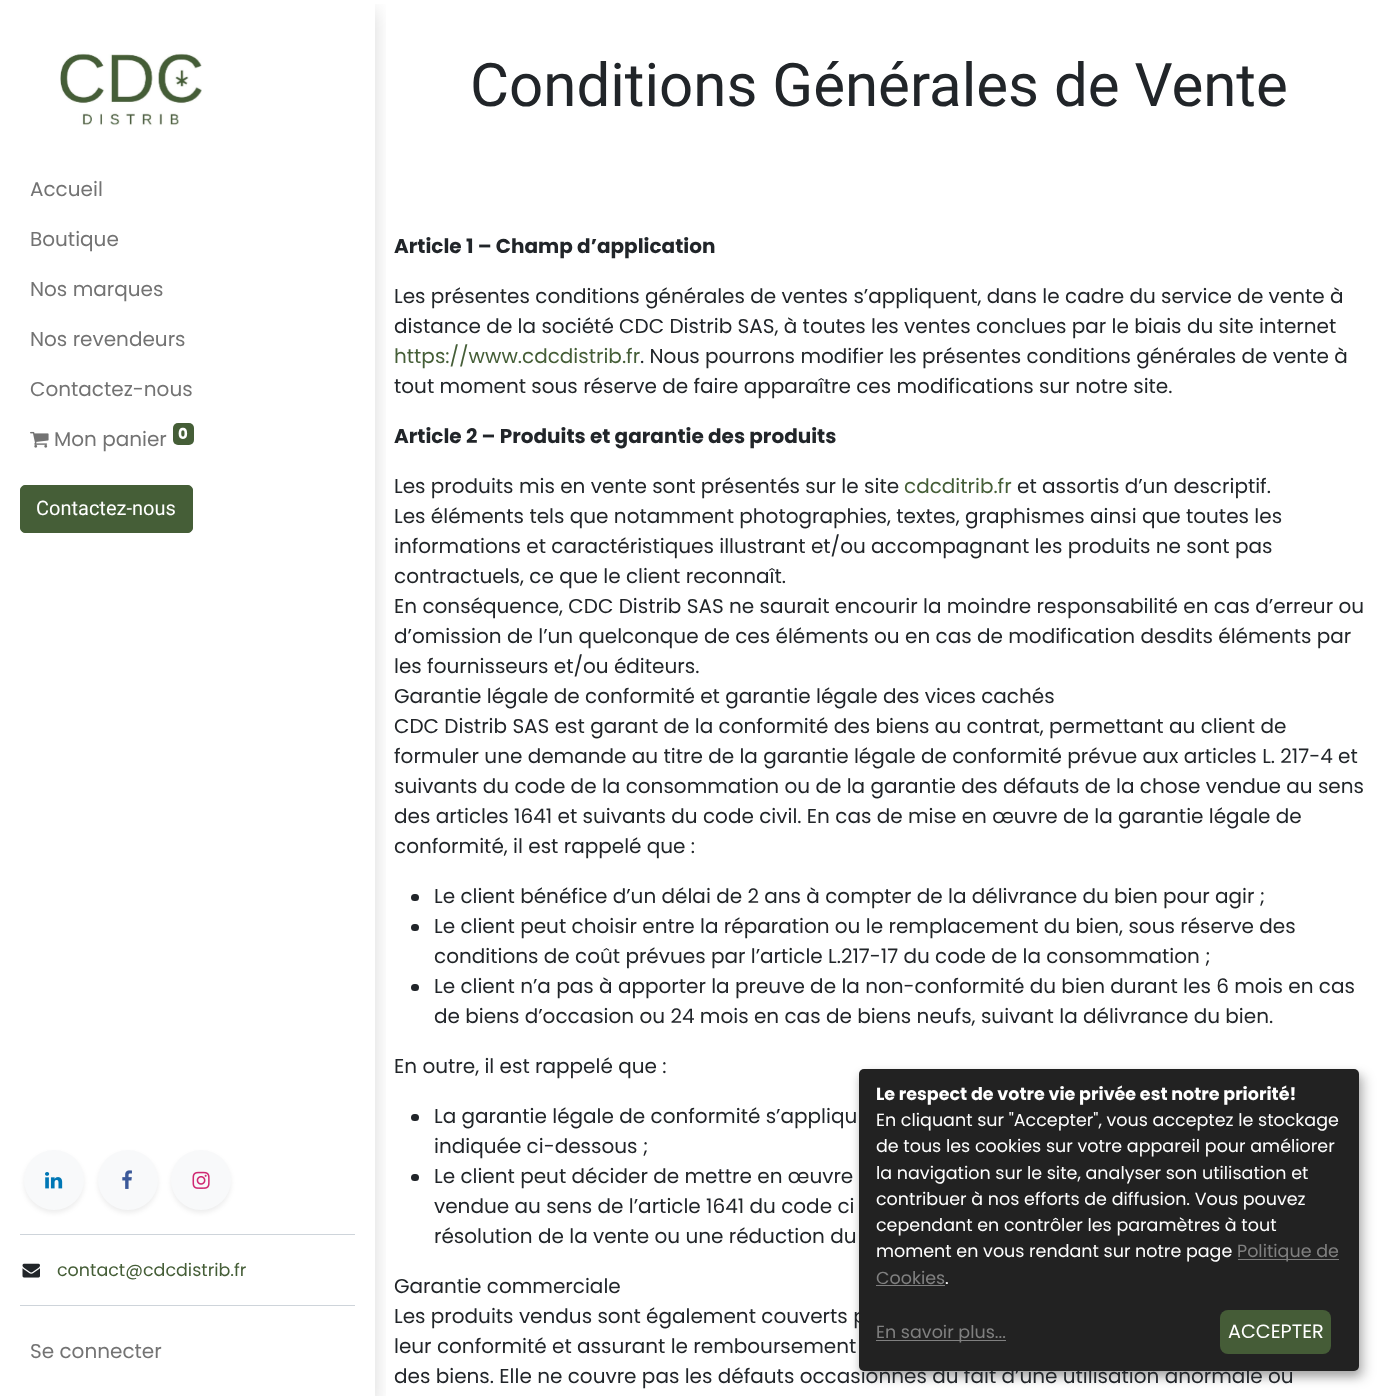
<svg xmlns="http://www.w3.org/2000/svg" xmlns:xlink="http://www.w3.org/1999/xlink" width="1383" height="1396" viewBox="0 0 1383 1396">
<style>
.cls-1{font:20px Poppins;fill:#737373}
.cls-2{font:bold 15px Poppins;fill:#ffffff}
.cls-3{font:20px Roboto;fill:#ffffff}
.cls-4{font:17.5px Poppins;fill:#455e37}
.cls-5{font:60px Roboto;fill:#212529}
.cls-6{font:bold 20px Poppins;fill:#212529}
.cls-7{font:20px Poppins;fill:#212529}
.cls-8{font:20px Poppins;fill:#455e37}
.cls-9{font:bold 17.5px Poppins;fill:#ffffff}
.cls-10{font:17.5px Poppins;fill:#ffffff}
.cls-11{font:17.5px Poppins;fill:#808080}
.cls-12{font:19.25px Poppins;fill:#ffffff}
</style>
<defs>
<clipPath id="clip1"><rect x="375" y="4" width="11" height="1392"/></clipPath>
</defs>
<rect width="100%" height="100%" fill="#ffffff"/>
<g clip-path="url(#clip1)">
<rect fill="#000000" fill-opacity="0.15" filter="blur(10px)" x="0" y="10" width="375" height="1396"/>
</g>
<image xlink:href="image0.png" x="60" y="52" width="142" height="74"/>
<image xlink:href="image1.png" x="30" y="431" width="19" height="17"/>
<rect fill="#455e37" x="173" y="423" width="21" height="22" rx="5"/>
<rect fill="#455e37" stroke="#455e37" x="20.5" y="485.5" width="172" height="47" rx="4.5"/>
<rect fill="#000000" fill-opacity="0.07" filter="blur(2.5px)" x="24" y="1153" width="60" height="60" rx="30"/>
<circle fill="#f8f9fa" cx="54" cy="1180" r="30"/>
<image xlink:href="image2.png" x="45" y="1172" width="18" height="17"/>
<rect fill="#000000" fill-opacity="0.07" filter="blur(2.5px)" x="98" y="1153" width="60" height="60" rx="30"/>
<circle fill="#f8f9fa" cx="128" cy="1180" r="30"/>
<image xlink:href="image3.png" x="122" y="1170" width="10" height="19"/>
<rect fill="#000000" fill-opacity="0.07" filter="blur(2.5px)" x="171" y="1153" width="60" height="60" rx="30"/>
<circle fill="#f8f9fa" cx="201" cy="1180" r="30"/>
<image xlink:href="image4.png" x="192" y="1171" width="18" height="18"/>
<rect fill="#ced4da" x="20" y="1234" width="335" height="1"/>
<image xlink:href="image5.png" x="22" y="1263" width="18" height="15"/>
<rect fill="#ced4da" x="20" y="1305" width="335" height="1"/>
<rect fill="#212529" x="411" y="894" width="8" height="7" rx="3.5"/>
<rect fill="#212529" x="411" y="924" width="8" height="7" rx="3.5"/>
<rect fill="#212529" x="411" y="984" width="8" height="7" rx="3.5"/>
<rect fill="#212529" x="411" y="1114" width="8" height="7" rx="3.5"/>
<rect fill="#212529" x="411" y="1174" width="8" height="7" rx="3.5"/>
<rect fill="#000000" fill-opacity="0.19" filter="blur(6px)" x="865" y="1075" width="500" height="303" rx="5"/>
<rect fill="#000000" fill-opacity="0.2" filter="blur(4px)" x="859" y="1074" width="500" height="302" rx="5"/>
<text class="cls-1" x="30" y="196">Accueil</text>
<text class="cls-1" x="30" y="246">Boutique</text>
<text class="cls-1" x="30" y="296">Nos marques</text>
<text class="cls-1" x="30" y="346">Nos revendeurs</text>
<text class="cls-1" x="30" y="396">Contactez-nous</text>
<text class="cls-1" x="54" y="446">Mon panier</text>
<text class="cls-2" x="178" y="439">0</text>
<text class="cls-3" x="36" y="515">Contactez-nous</text>
<text class="cls-4" x="57" y="1276">contact@cdcdistrib.fr</text>
<text class="cls-1" x="30" y="1358">Se connecter</text>
<text class="cls-5" x="470" y="106">Conditions Générales de Vente</text>
<text class="cls-6" x="394" y="253">Article 1 – Champ d’application</text>
<text class="cls-7"><tspan x="394" y="303">Les présentes conditions générales de ventes s’appliquent, dans le cadre du service de vente à</tspan><tspan x="394" y="333">distance de la société CDC Distrib SAS, à toutes les ventes conclues par le biais du site internet</tspan></text>
<text class="cls-8" x="394" y="363">https://www.cdcdistrib.fr</text>
<text class="cls-7" x="640" y="363">. Nous pourrons modifier les présentes conditions générales de vente à</text>
<text class="cls-7" x="394" y="393">tout moment sous réserve de faire apparaître ces modifications sur notre site.</text>
<text class="cls-6" x="394" y="443">Article 2 – Produits et garantie des produits</text>
<text class="cls-7" x="394" y="493">Les produits mis en vente sont présentés sur le site</text>
<text class="cls-8" x="904" y="493">cdcditrib.fr</text>
<text class="cls-7" x="1017" y="493">et assortis d’un descriptif.</text>
<text class="cls-7"><tspan x="394" y="523">Les éléments tels que notamment photographies, textes, graphismes ainsi que toutes les</tspan><tspan x="394" y="553">informations et caractéristiques illustrant et/ou accompagnant les produits ne sont pas</tspan><tspan x="394" y="583">contractuels, ce que le client reconnaît.</tspan><tspan x="394" y="613">En conséquence, CDC Distrib SAS ne saurait encourir la moindre responsabilité en cas d’erreur ou</tspan><tspan x="394" y="643">d’omission de l’un quelconque de ces éléments ou en cas de modification desdits éléments par</tspan><tspan x="394" y="673">les fournisseurs et/ou éditeurs.</tspan><tspan x="394" y="703">Garantie légale de conformité et garantie légale des vices cachés</tspan><tspan x="394" y="733">CDC Distrib SAS est garant de la conformité des biens au contrat, permettant au client de</tspan><tspan x="394" y="763">formuler une demande au titre de la garantie légale de conformité prévue aux articles L. 217-4 et</tspan><tspan x="394" y="793">suivants du code de la consommation ou de la garantie des défauts de la chose vendue au sens</tspan><tspan x="394" y="823">des articles 1641 et suivants du code civil. En cas de mise en œuvre de la garantie légale de</tspan><tspan x="394" y="853">conformité, il est rappelé que :</tspan></text>
<text class="cls-7"><tspan x="434" y="903">Le client bénéfice d’un délai de 2 ans à compter de la délivrance du bien pour agir ;</tspan><tspan x="434" y="933">Le client peut choisir entre la réparation ou le remplacement du bien, sous réserve des</tspan><tspan x="434" y="963">conditions de coût prévues par l’article L.217-17 du code de la consommation ;</tspan><tspan x="434" y="993">Le client n’a pas à apporter la preuve de la non-conformité du bien durant les 6 mois en cas</tspan><tspan x="434" y="1023">de biens d’occasion ou 24 mois en cas de biens neufs, suivant la délivrance du bien.</tspan></text>
<text class="cls-7" x="394" y="1073">En outre, il est rappelé que :</text>
<text class="cls-7"><tspan x="434" y="1123">La garantie légale de conformité s’appliqu</tspan><tspan x="434" y="1153">indiquée ci-dessous ;</tspan><tspan x="434" y="1183">Le client peut décider de mettre en œuvre</tspan><tspan x="434" y="1213">vendue au sens de l’article 1641 du code ci</tspan><tspan x="434" y="1243">résolution de la vente ou une réduction du</tspan></text>
<text class="cls-7"><tspan x="394" y="1293">Garantie commerciale</tspan><tspan x="394" y="1323">Les produits vendus sont également couverts p</tspan><tspan x="394" y="1353">leur conformité et assurant le remboursement</tspan><tspan x="394" y="1383">des biens. Elle ne couvre pas les défauts occasionnés du fait d’une utilisation anormale ou</tspan></text>
<rect fill="#222222" x="859" y="1069" width="500" height="302" rx="5"/>
<text class="cls-9" x="876" y="1100">Le respect de votre vie privée est notre priorité!</text>
<text class="cls-10"><tspan x="876" y="1126">En cliquant sur "Accepter", vous acceptez le stockage</tspan><tspan x="876" y="1152">de tous les cookies sur votre appareil pour améliorer</tspan><tspan x="876" y="1179">la navigation sur le site, analyser son utilisation et</tspan><tspan x="876" y="1205">contribuer à nos efforts de diffusion. Vous pouvez</tspan><tspan x="876" y="1231">cependant en contrôler les paramètres à tout</tspan><tspan x="876" y="1257">moment en vous rendant sur notre page</tspan></text>
<rect fill="#808080" x="1238" y="1259" width="101" height="1"/>
<text class="cls-11" x="1237" y="1257">Politique de</text>
<text class="cls-11" x="876" y="1284">Cookies</text>
<text class="cls-10" x="945" y="1284">.</text>
<rect fill="#808080" x="876" y="1285" width="69" height="1"/>
<rect fill="#808080" x="876" y="1340" width="130" height="1"/>
<text class="cls-11" x="876" y="1338">En savoir plus...</text>
<rect fill="#455c37" x="1220" y="1310" width="111" height="44" rx="8"/>
<text class="cls-12" x="1228" y="1338">ACCEPTER</text>
</svg>
